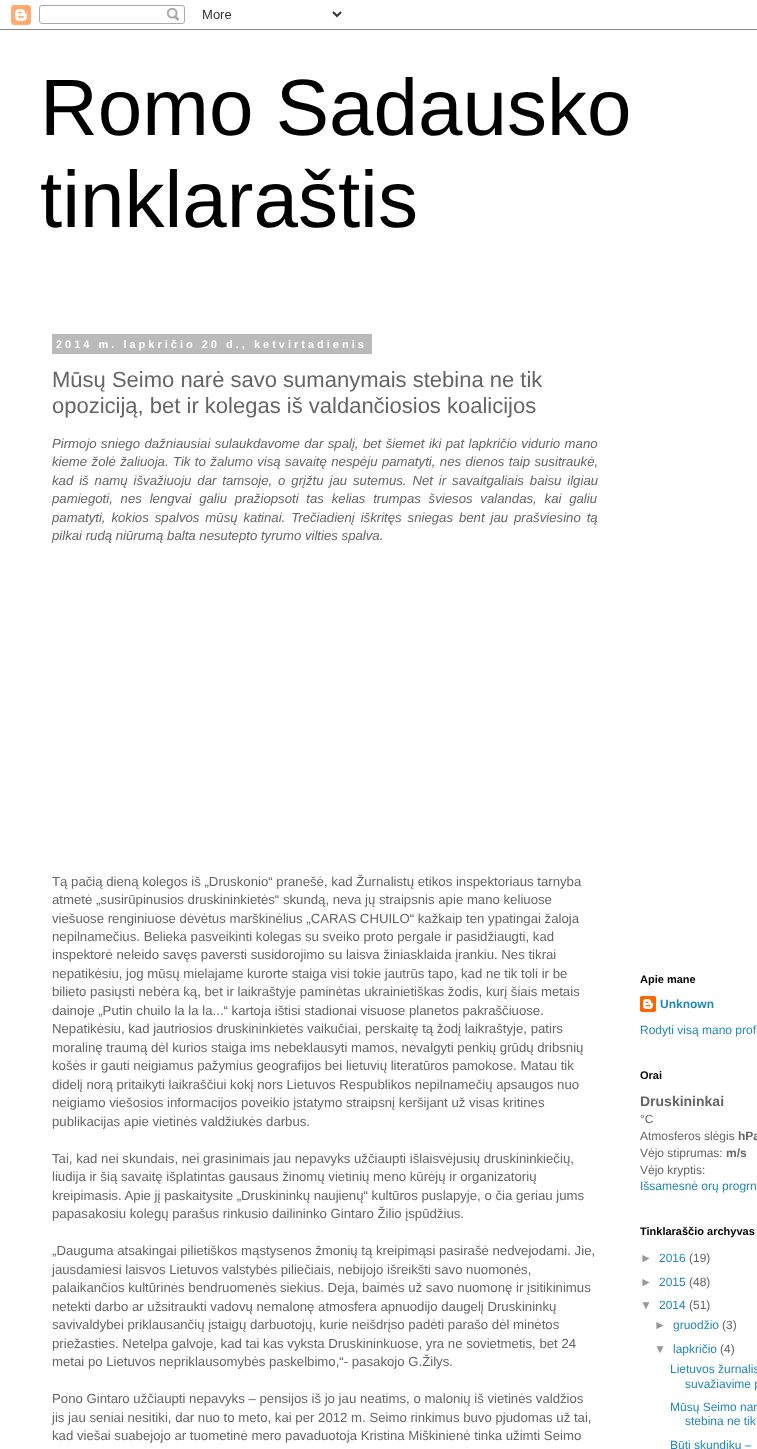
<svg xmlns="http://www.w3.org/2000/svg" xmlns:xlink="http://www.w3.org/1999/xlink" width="757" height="1449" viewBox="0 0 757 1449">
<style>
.cls-1{font:80px Liberation Sans;fill:#000000}
.cls-2{font:bold 11px Liberation Sans;letter-spacing:3px;fill:#ffffff}
.cls-3{font:22px Liberation Sans;fill:#656565}
.cls-4{font:italic 13.2px Liberation Sans;fill:#656565}
.cls-5{font:13.2px Liberation Sans;fill:#656565}
.cls-6{font:bold 11px Liberation Sans;fill:#000000}
.cls-7{font:bold 12px Liberation Sans;fill:#2187ba}
.cls-8{font:12px Liberation Sans;fill:#2187ba}
.cls-9{font:bold 14px Liberation Sans;fill:#656565}
.cls-10{font:12px Liberation Sans;fill:#656565}
.cls-11{font:bold 12px Liberation Sans;fill:#656565}
.cls-12{font:12px Liberation Sans;fill:#989898}
</style>
<rect width="100%" height="100%" fill="#ffffff"/>
<image xlink:href="image0.png" x="0" y="5" width="757" height="25"/>
<rect fill="#bababa" x="52" y="334" width="320" height="20"/>
<image xlink:href="image1.png" x="640" y="996" width="16" height="16"/>
<text class="cls-1"><tspan x="40" y="135">Romo Sadausko</tspan><tspan x="40" y="227">tinklaraštis</tspan></text>
<text class="cls-2" x="56" y="348">2014 m. lapkričio 20 d., ketvirtadienis</text>
<text class="cls-3"><tspan x="52" y="387">Mūsų Seimo narė savo sumanymais stebina ne tik</tspan><tspan x="52" y="413">opoziciją, bet ir kolegas iš valdančiosios koalicijos</tspan></text>
<text class="cls-4"><tspan x="52" y="448" word-spacing="0.75">Pirmojo sniego dažniausiai sulaukdavome dar spalį, bet šiemet iki pat lapkričio vidurio mano</tspan><tspan x="52" y="466" word-spacing="0.75">kieme žolė žaliuoja. Tik to žalumo visą savaitę nespėju pamatyti, nes dienos taip susitraukė,</tspan><tspan x="52" y="485" word-spacing="2.25">kad iš namų išvažiuoju dar tamsoje, o grįžtu jau sutemus. Net ir savaitgaliais baisu ilgiau</tspan><tspan x="52" y="503" word-spacing="4.1">pamiegoti, nes lengvai galiu pražiopsoti tas kelias trumpas šviesos valandas, kai galiu</tspan><tspan x="52" y="522" word-spacing="2.25">pamatyti, kokios spalvos mūsų katinai. Trečiadienį iškritęs sniegas bent jau prašviesino tą</tspan><tspan x="52" y="540">pilkai rudą niūrumą balta nesutepto tyrumo vilties spalva.</tspan></text>
<text class="cls-5"><tspan x="52" y="886">Tą pačią dieną kolegos iš „Druskonio“ pranešė, kad Žurnalistų etikos inspektoriaus tarnyba</tspan><tspan x="52" y="904">atmetė „susirūpinusios druskininkietės“ skundą, neva jų straipsnis apie mano keliuose</tspan><tspan x="52" y="923">viešuose renginiuose dėvėtus marškinėlius „CARAS CHUILO“ kažkaip ten ypatingai žaloja</tspan><tspan x="52" y="941">nepilnamečius. Belieka pasveikinti kolegas su sveiko proto pergale ir pasidžiaugti, kad</tspan><tspan x="52" y="959">inspektorė neleido savęs paversti susidorojimo su laisva žiniasklaida įrankiu. Nes tikrai</tspan><tspan x="52" y="978">nepatikėsiu, jog mūsų mielajame kurorte staiga visi tokie jautrūs tapo, kad ne tik toli ir be</tspan><tspan x="52" y="996">bilieto pasiųsti nebėra ką, bet ir laikraštyje paminėtas ukrainietiškas žodis, kurį šiais metais</tspan><tspan x="52" y="1015">dainoje „Putin chuilo la la la...“ kartoja ištisi stadionai visuose planetos pakraščiuose.</tspan><tspan x="52" y="1033">Nepatikėsiu, kad jautriosios druskininkietės vaikučiai, perskaitę tą žodį laikraštyje, patirs</tspan><tspan x="52" y="1052">moralinę traumą dėl kurios staiga ims nebeklausyti mamos, nevalgyti penkių grūdų dribsnių</tspan><tspan x="52" y="1070">košės ir gauti neigiamus pažymius geografijos bei lietuvių literatūros pamokose. Matau tik</tspan><tspan x="52" y="1089">didelį norą pritaikyti laikraščiui kokį nors Lietuvos Respublikos nepilnamečių apsaugos nuo</tspan><tspan x="52" y="1107">neigiamo viešosios informacijos poveikio įstatymo straipsnį keršijant už visas kritines</tspan><tspan x="52" y="1126">publikacijas apie vietinės valdžiukės darbus.</tspan></text>
<text class="cls-5"><tspan x="52" y="1163">Tai, kad nei skundais, nei grasinimais jau nepavyks užčiaupti išlaisvėjusių druskininkiečių,</tspan><tspan x="52" y="1181">liudija ir šią savaitę išplatintas gausaus žinomų vietinių meno kūrėjų ir organizatorių</tspan><tspan x="52" y="1200">kreipimasis. Apie jį paskaitysite „Druskininkų naujienų“ kultūros puslapyje, o čia geriau jums</tspan><tspan x="52" y="1218">papasakosiu kolegų parašus rinkusio dailininko Gintaro Žilio įspūdžius.</tspan></text>
<text class="cls-5"><tspan x="52" y="1255">„Dauguma atsakingai pilietiškos mąstysenos žmonių tą kreipimąsi pasirašė nedvejodami. Jie,</tspan><tspan x="52" y="1274">jausdamiesi laisvos Lietuvos valstybės piliečiais, nebijojo išreikšti savo nuomonės,</tspan><tspan x="52" y="1292">palaikančios kultūrinės bendruomenės siekius. Deja, baimės už savo nuomonę ir įsitikinimus</tspan><tspan x="52" y="1311">netekti darbo ar užsitraukti vadovų nemalonę atmosfera apnuodijo daugelį Druskininkų</tspan><tspan x="52" y="1329">savivaldybei priklausančių įstaigų darbuotojų, kurie neišdrįso padėti parašo dėl minėtos</tspan><tspan x="52" y="1348">priežasties. Netelpa galvoje, kad tai kas vyksta Druskininkuose, yra ne sovietmetis, bet 24</tspan><tspan x="52" y="1366">metai po Lietuvos nepriklausomybės paskelbimo,“- pasakojo G.Žilys.</tspan></text>
<text class="cls-5"><tspan x="52" y="1403">Pono Gintaro užčiaupti nepavyks – pensijos iš jo jau neatims, o malonių iš vietinės valdžios</tspan><tspan x="52" y="1422">jis jau seniai nesitiki, dar nuo to meto, kai per 2012 m. Seimo rinkimus buvo pjudomas už tai,</tspan><tspan x="52" y="1440">kad viešai suabejojo ar tuometinė mero pavaduotoja Kristina Miškinienė tinka užimti Seimo</tspan></text>
<text class="cls-6" x="640" y="983">Apie mane</text>
<text class="cls-7" x="660" y="1008">Unknown</text>
<text class="cls-8" x="640" y="1034">Rodyti visą mano prof</text>
<text class="cls-6" x="640" y="1079">Orai</text>
<text class="cls-9" x="640" y="1106">Druskininkai</text>
<text class="cls-10"><tspan x="640" y="1123">°C</tspan><tspan x="640" y="1140">Atmosferos slėgis</tspan></text>
<text class="cls-11" x="738" y="1140">hPa</text>
<text class="cls-10" x="640" y="1157">Vėjo stiprumas:</text>
<text class="cls-11" x="726" y="1157">m/s</text>
<text class="cls-10" x="640" y="1174">Vėjo kryptis:</text>
<text class="cls-8" x="640" y="1190">Išsamesnė orų progrn</text>
<text class="cls-6" x="640" y="1235">Tinklaraščio archyvas</text>
<text class="cls-12" x="640" y="1262">►</text>
<text class="cls-8" x="659" y="1262">2016</text>
<text class="cls-10" x="689" y="1262">(19)</text>
<text class="cls-12" x="640" y="1286">►</text>
<text class="cls-8" x="659" y="1286">2015</text>
<text class="cls-10" x="689" y="1286">(48)</text>
<text class="cls-12" x="640" y="1309">▼</text>
<text class="cls-8" x="659" y="1309">2014</text>
<text class="cls-10" x="689" y="1309">(51)</text>
<text class="cls-12" x="654" y="1329">►</text>
<text class="cls-8" x="673" y="1329">gruodžio</text>
<text class="cls-10" x="722" y="1329">(3)</text>
<text class="cls-12" x="654" y="1353">▼</text>
<text class="cls-8" x="673" y="1353">lapkričio</text>
<text class="cls-10" x="720" y="1353">(4)</text>
<text class="cls-8" x="670" y="1373">Lietuvos žurnalis</text>
<text class="cls-8" x="685" y="1388">suvažiavime p</text>
<text class="cls-8" x="670" y="1411">Mūsų Seimo nar</text>
<text class="cls-8" x="685" y="1425">stebina ne tik</text>
<text class="cls-8" x="670" y="1449">Būti skundiku –</text>
</svg>
